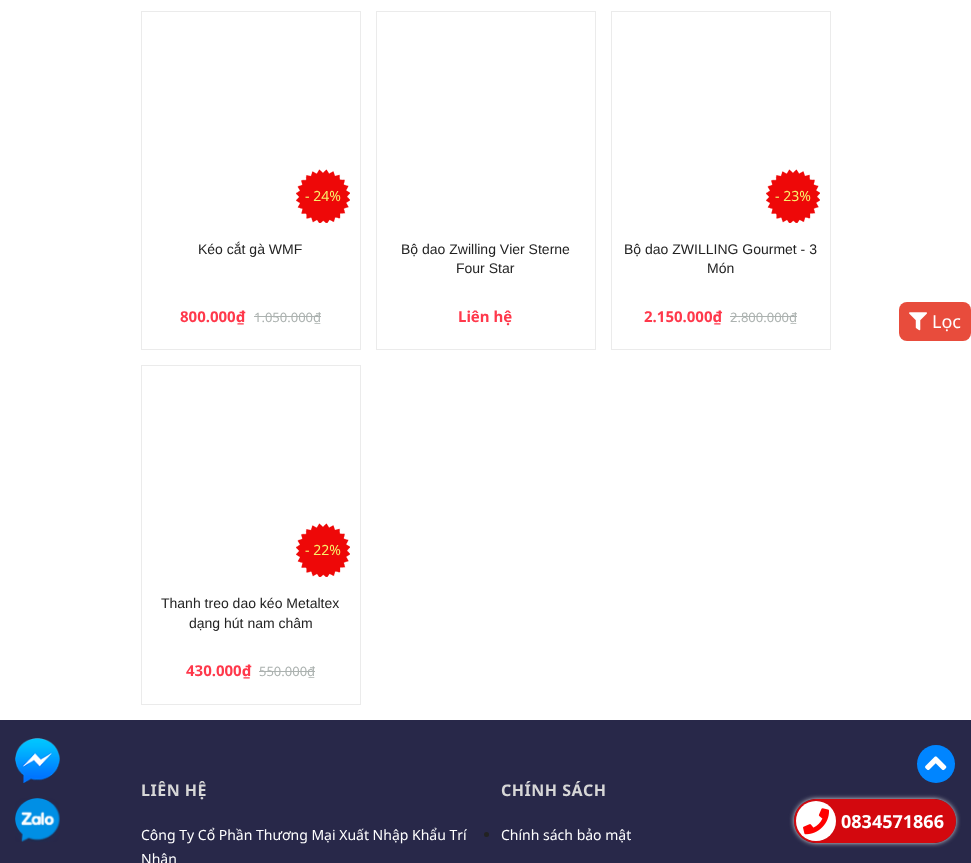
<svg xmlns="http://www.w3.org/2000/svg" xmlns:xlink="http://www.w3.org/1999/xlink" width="971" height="863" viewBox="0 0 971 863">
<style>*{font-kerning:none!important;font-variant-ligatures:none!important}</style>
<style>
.cls-1{font:14px Noto Sans;fill:#f8f06a}
.cls-2{font:14px Liberation Sans;fill:#222222}
.cls-3{font:bold 15px Noto Sans;fill:#ff384b}
.cls-4{font:13px Noto Sans;fill:#acb2b0}
.cls-5{font:18px Noto Sans;fill:#ffffff}
.cls-6{font:bold 16px Noto Sans;letter-spacing:0.5px;fill:#d7d7d7}
.cls-7{font:14px Noto Sans;fill:#ffffff}
.cls-8{font:bold 18px Noto Sans;fill:#ffffff}
</style>
<defs>
<clipPath id="clip1"><path d="M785 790H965V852H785ZM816 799H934C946 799 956 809 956 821C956 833 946 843 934 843H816C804 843 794 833 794 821C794 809 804 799 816 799Z" clip-rule="evenodd"/></clipPath>
</defs>
<rect width="100%" height="100%" fill="#ffffff"/>
<rect fill="none" stroke="#ebebeb" x="141.5" y="11.5" width="219" height="338"/>
<image xlink:href="image0.png" x="296" y="169" width="54" height="54"/>
<rect fill="#acb2b0" x="254" y="316" width="67" height="1"/>
<rect fill="none" stroke="#ebebeb" x="376.5" y="11.5" width="219" height="338"/>
<rect fill="none" stroke="#ebebeb" x="611.5" y="11.5" width="219" height="338"/>
<image xlink:href="image0.png" x="766" y="169" width="54" height="54"/>
<rect fill="#acb2b0" x="730" y="316" width="67" height="1"/>
<rect fill="none" stroke="#ebebeb" x="141.5" y="365.5" width="219" height="339"/>
<image xlink:href="image0.png" x="296" y="523" width="54" height="54"/>
<rect fill="#acb2b0" x="259" y="671" width="56" height="1"/>
<rect fill="#e84c3c" x="899" y="302" width="72" height="39" rx="8"/>
<image xlink:href="image1.png" x="909" y="312" width="18" height="19"/>
<rect fill="#282849" x="0" y="720" width="971" height="143"/>
<image xlink:href="image2.png" x="15" y="738" width="45" height="45"/>
<image xlink:href="image3.png" x="15" y="798" width="45" height="44"/>
<circle fill="#0085ff" cx="936" cy="764" r="19"/>
<image xlink:href="image4.png" x="925" y="756" width="22" height="15"/>
<circle fill="#222222" cx="486.5" cy="834.5" r="2.5"/>
<g clip-path="url(#clip1)">
<rect fill="#dddddd" filter="blur(2.5px)" x="794" y="799" width="162" height="44" rx="22"/>
</g>
<rect fill="#fe0000" fill-opacity="0.8" x="794" y="799" width="162" height="44" rx="22"/>
<circle fill="#ffffff" cx="816" cy="821" r="20"/>
<image xlink:href="image5.png" x="803" y="808" width="26" height="27"/>
<text class="cls-1" x="305" y="201">- 24%</text>
<text class="cls-2" x="198" y="254">Kéo cắt gà WMF</text>
<text class="cls-3" x="180" y="322">800.000₫</text>
<text class="cls-4" x="254" y="322">1.050.000₫</text>
<text class="cls-2" x="401" y="254">Bộ dao Zwilling Vier Sterne</text>
<text class="cls-2" x="456" y="273">Four Star</text>
<text class="cls-3" x="458" y="322">Liên hệ</text>
<text class="cls-1" x="775" y="201">- 23%</text>
<text class="cls-2" x="624" y="254">Bộ dao ZWILLING Gourmet - 3</text>
<text class="cls-2" x="707" y="273">Món</text>
<text class="cls-3" x="644" y="322">2.150.000₫</text>
<text class="cls-4" x="730" y="322">2.800.000₫</text>
<text class="cls-1" x="305" y="555">- 22%</text>
<text class="cls-2" x="161" y="608">Thanh treo dao kéo Metaltex</text>
<text class="cls-2" x="189" y="628">dạng hút nam châm</text>
<text class="cls-3" x="186" y="676">430.000₫</text>
<text class="cls-4" x="259" y="676">550.000₫</text>
<text class="cls-5" x="932" y="328">Lọc</text>
<text class="cls-6" x="141" y="796">LIÊN HỆ</text>
<text class="cls-7"><tspan x="141" y="840">Công Ty Cổ Phần Thương Mại Xuất Nhập Khẩu Trí</tspan><tspan x="141" y="864">Nhân</tspan></text>
<text class="cls-6" x="501" y="796">CHÍNH SÁCH</text>
<text class="cls-7" x="501" y="840">Chính sách bảo mật</text>
<text class="cls-8" x="841" y="828">0834571866</text>
</svg>
